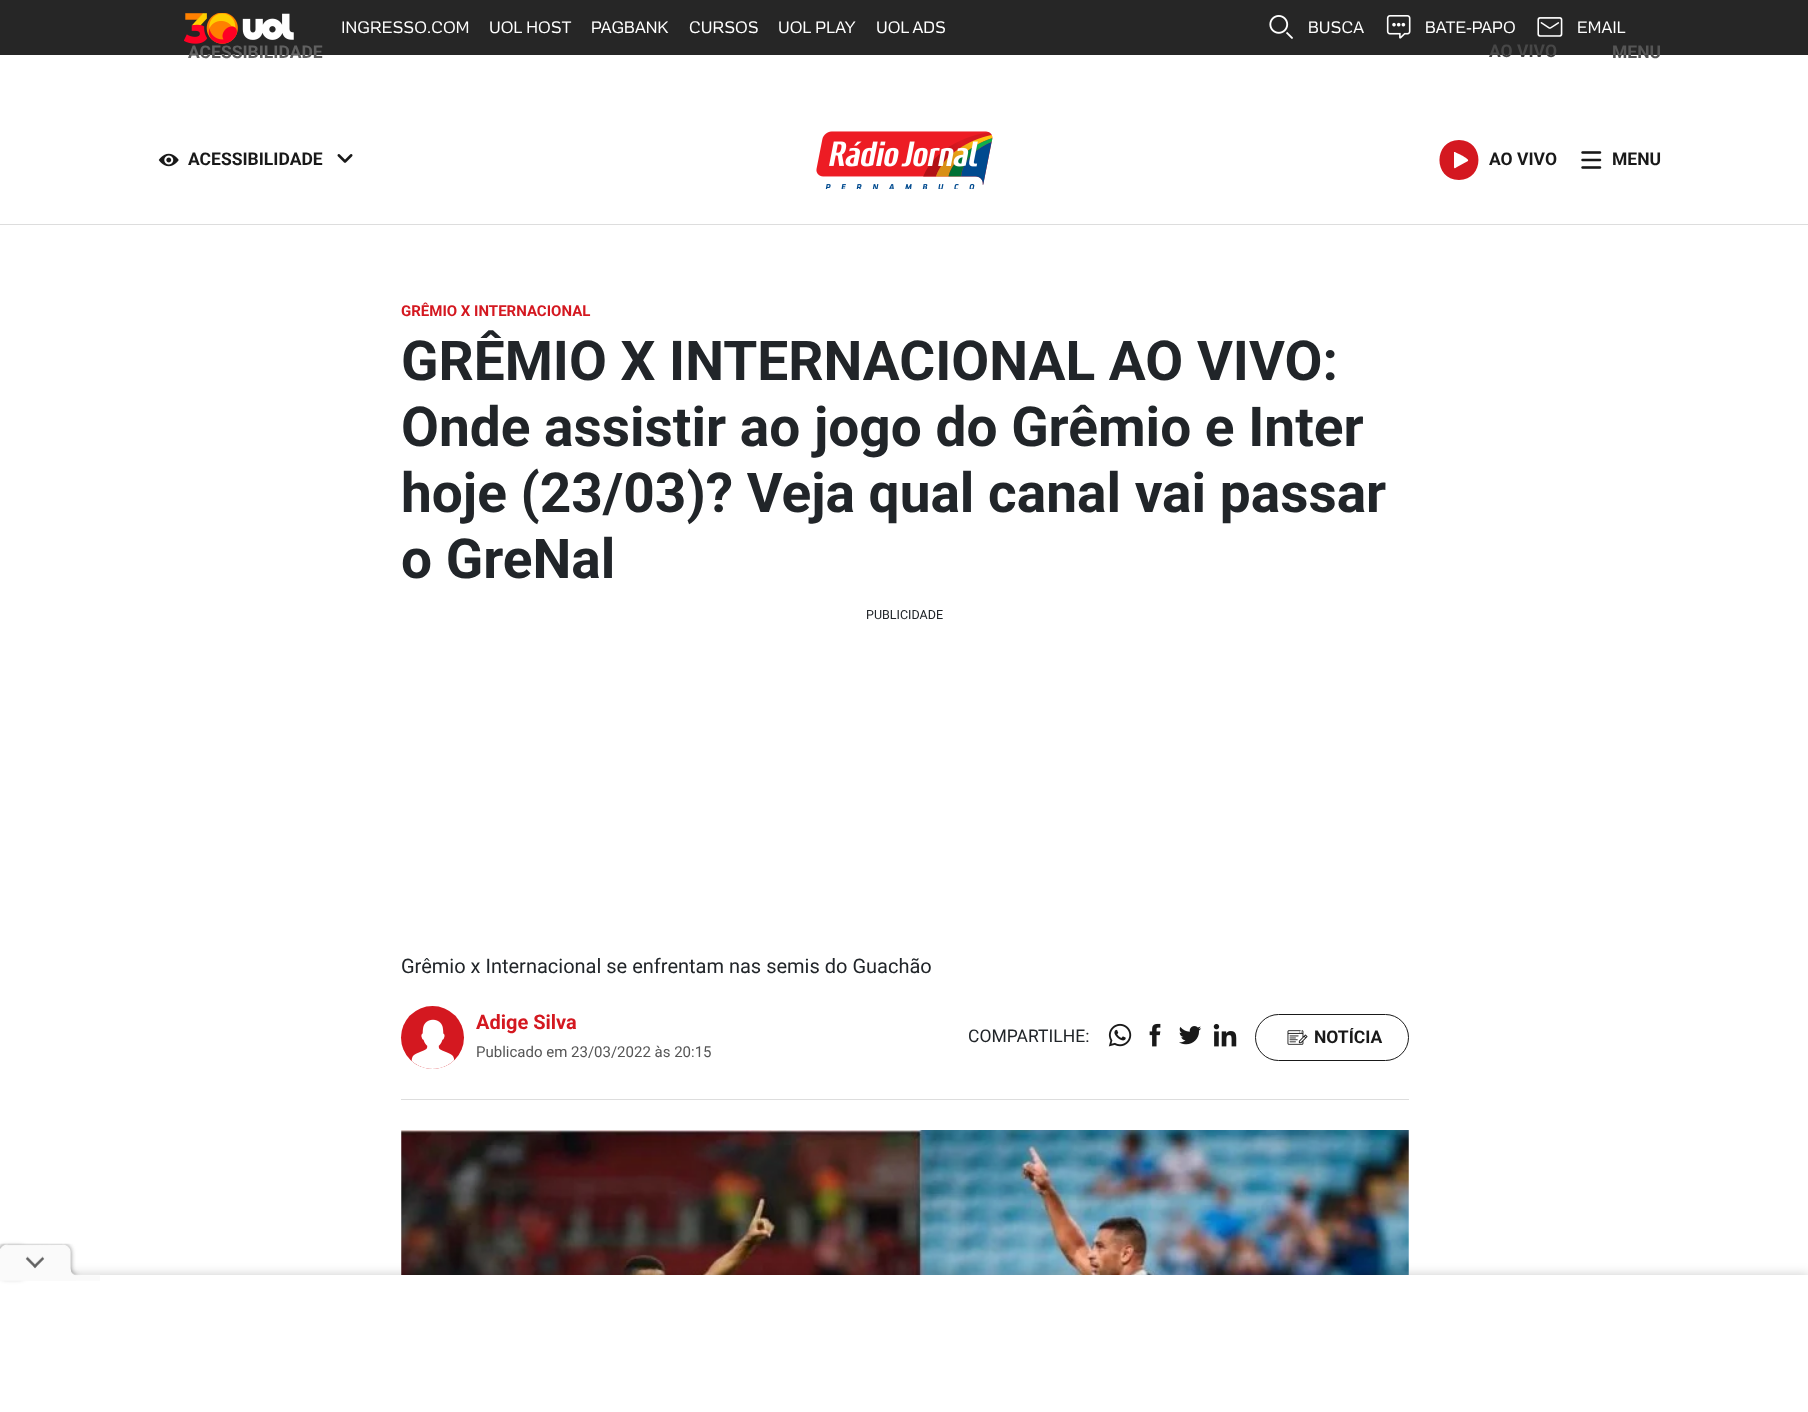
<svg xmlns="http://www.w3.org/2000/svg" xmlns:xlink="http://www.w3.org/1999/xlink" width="1808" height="1412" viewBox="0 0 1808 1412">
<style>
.cls-1{font:16.25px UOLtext;fill:#ffffff}
.cls-2{font:bold 17.5px Roboto;fill:#606060}
.cls-3{font:bold 17.5px Roboto;fill:#474747}
.cls-4{font:bold 17.5px Roboto;fill:#555555}
.cls-5{font:bold 17.5px Roboto;fill:#191919}
.cls-6{font:bold 15px Roboto;fill:#d41820}
.cls-7{font:bold 55px Roboto;fill:#212529}
.cls-8{font:12.5px Roboto;fill:#212529}
.cls-9{font:20px Roboto;fill:#212529}
.cls-10{font:bold 20px Roboto;fill:#d41820}
.cls-11{font:15px Roboto;fill:#555555}
.cls-12{font:17.5px Roboto;fill:#212529}
</style>
<defs>
<clipPath id="clip1"><rect x="1314" y="1028" width="69" height="18"/></clipPath>
</defs>
<rect width="100%" height="100%" fill="#ffffff"/>
<rect fill="#262626" x="0" y="0" width="1808" height="55"/>
<image xlink:href="image0.png" x="184" y="13" width="110" height="31"/>
<image xlink:href="image1.png" x="1269" y="15" width="24" height="24"/>
<image xlink:href="image2.png" x="1386" y="15" width="25" height="24"/>
<image xlink:href="image3.png" x="1537" y="17" width="26" height="20"/>
<rect fill="#dddddd" x="0" y="224" width="1808" height="1"/>
<image xlink:href="image4.png" x="158" y="153" width="21" height="14"/>
<image xlink:href="image5.png" x="337" y="154" width="16" height="9"/>
<image xlink:href="image6.png" x="816" y="131" width="177" height="58"/>
<path fill="#d41820" d="M1459 140C1433 140 1433 180 1459 180C1485 180 1485 140 1459 140ZM1468 161L1457 167C1454 169 1454 169 1454 165V152H1455C1459 154 1470 159 1468 161Z"/>
<image xlink:href="image7.png" x="1581" y="151" width="21" height="18"/>
<rect fill="#dddddd" x="401" y="1099" width="1008" height="1"/>
<circle fill="#d41820" cx="432.5" cy="1037.5" r="31.5"/>
<image xlink:href="image8.png" x="411" y="1019" width="44" height="50"/>
<image xlink:href="image9.png" x="1108" y="1023" width="24" height="24"/>
<image xlink:href="image10.png" x="1149" y="1023" width="12" height="24"/>
<image xlink:href="image11.png" x="1179" y="1026" width="23" height="19"/>
<image xlink:href="image12.png" x="1213" y="1023" width="24" height="24"/>
<rect fill="none" stroke="#191919" x="1255.5" y="1014.5" width="153" height="46" rx="23"/>
<image xlink:href="image13.png" x="1287" y="1030" width="21" height="15"/>
<image xlink:href="image14.png" x="401" y="1130" width="1008" height="145"/>
<rect fill="#000000" fill-opacity="0.2" filter="blur(6px)" x="0" y="1275" width="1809" height="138"/>
<rect fill="#ffffff" x="0" y="1275" width="1808" height="137"/>
<rect fill="#000000" fill-opacity="0.27" filter="blur(2.5px)" x="0" y="1246" width="25" height="33" rx="5"/>
<image xlink:href="image15.png" x="0" y="1243" width="100" height="38"/>
<text class="cls-1" x="341" y="33">INGRESSO.COM</text>
<text class="cls-1" x="489" y="33">UOL HOST</text>
<text class="cls-1" x="591" y="33">PAGBANK</text>
<text class="cls-1" x="689" y="33">CURSOS</text>
<text class="cls-1" x="778" y="33">UOL PLAY</text>
<text class="cls-1" x="876" y="33">UOL ADS</text>
<text class="cls-1" x="1308" y="33">BUSCA</text>
<text class="cls-1" x="1425" y="33">BATE-PAPO</text>
<text class="cls-1" x="1577" y="33">EMAIL</text>
<text class="cls-2" x="188" y="58">ACESSIBILIDADE</text>
<text class="cls-3" x="1489" y="57">AO VIVO</text>
<text class="cls-4" x="1612" y="58">MENU</text>
<text class="cls-5" x="188" y="165">ACESSIBILIDADE</text>
<text class="cls-5" x="1489" y="165">AO VIVO</text>
<text class="cls-5" x="1612" y="165">MENU</text>
<text class="cls-6" x="401" y="316">GRÊMIO X INTERNACIONAL</text>
<text class="cls-7"><tspan x="401" y="380">GRÊMIO X INTERNACIONAL AO VIVO:</tspan><tspan x="401" y="446">Onde assistir ao jogo do Grêmio e Inter</tspan><tspan x="401" y="512">hoje (23/03)? Veja qual canal vai passar</tspan><tspan x="401" y="578">o GreNal</tspan></text>
<text class="cls-8" x="866" y="619">PUBLICIDADE</text>
<text class="cls-9" x="401" y="973">Grêmio x Internacional se enfrentam nas semis do Guachão</text>
<text class="cls-10" x="476" y="1029">Adige Silva</text>
<text class="cls-11" x="476" y="1057">Publicado em 23/03/2022 às 20:15</text>
<text class="cls-12" x="968" y="1042">COMPARTILHE:</text>
<g clip-path="url(#clip1)">
<text class="cls-5" x="1314" y="1043">NOTÍCIA</text>
</g>
</svg>
